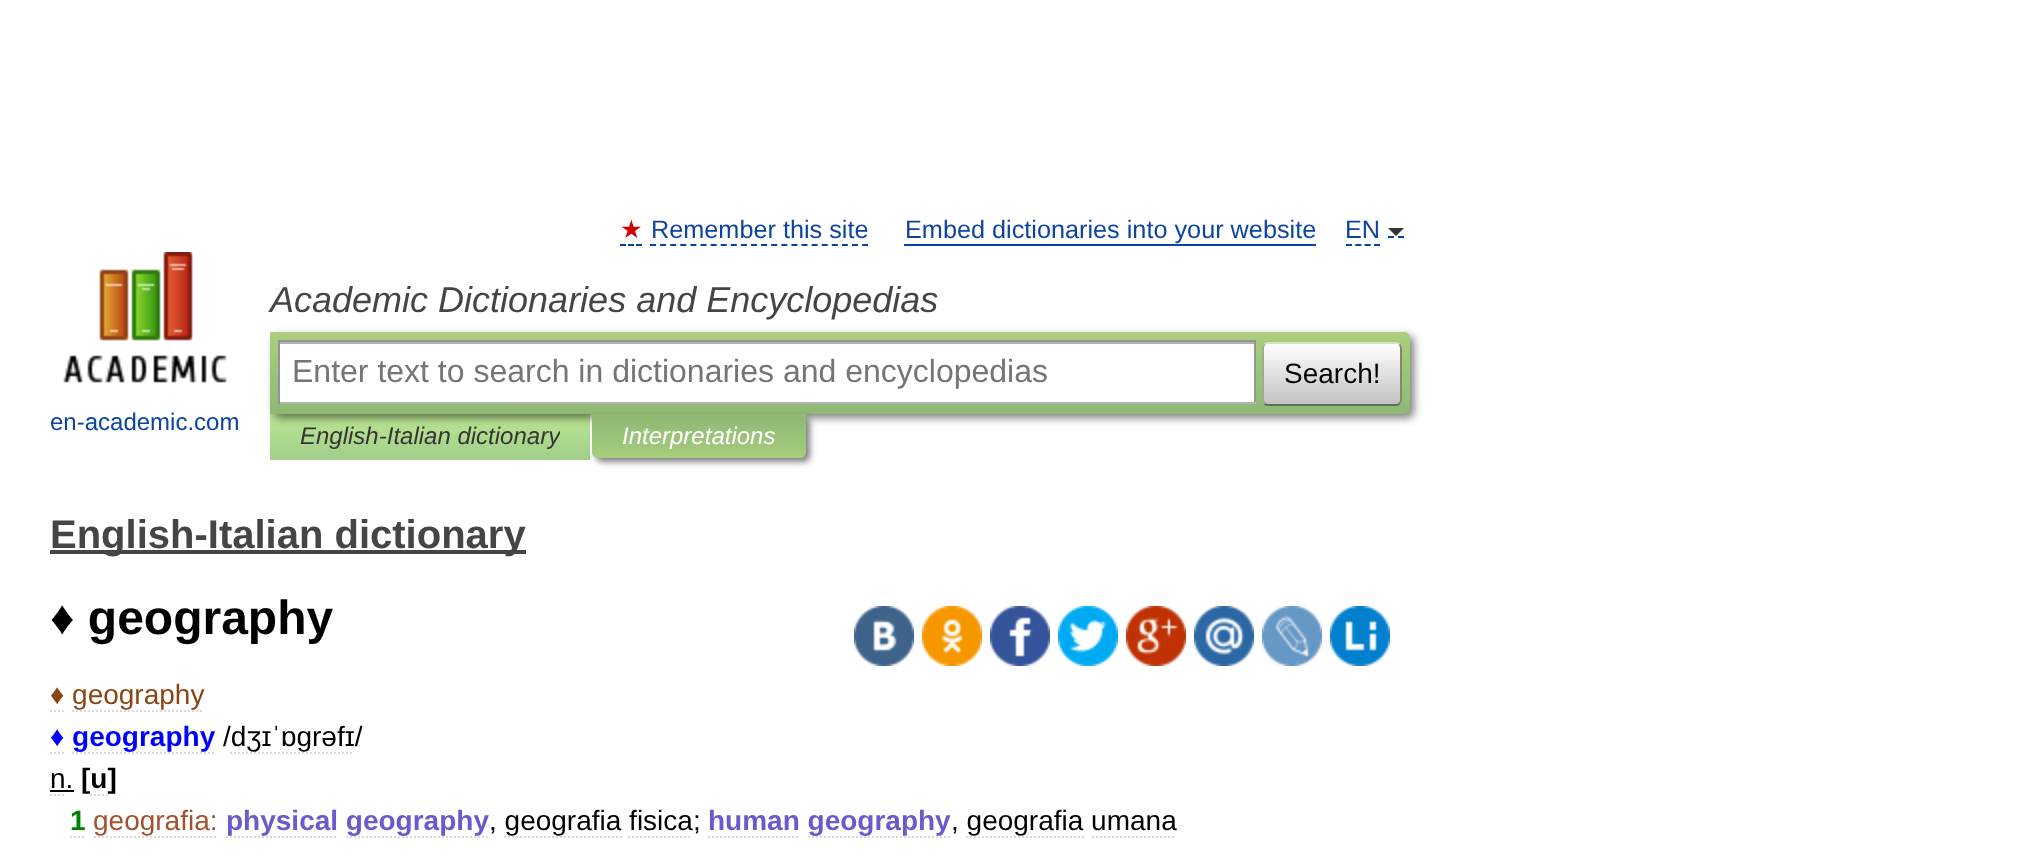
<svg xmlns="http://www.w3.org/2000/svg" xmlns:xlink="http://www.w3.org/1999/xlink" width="2039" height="858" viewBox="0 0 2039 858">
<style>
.cls-1{font:25.25px DejaVu Sans;fill:#cc0000}
.cls-2{font:25.25px Liberation Sans;fill:#0d44a0}
.cls-3{font:italic 36px Liberation Sans;fill:#454545}
.cls-4{font:32px Liberation Sans;fill:#757575}
.cls-5{font:28px Liberation Sans;fill:#000000}
.cls-6{font:24px Liberation Sans;fill:#0d44a0}
.cls-7{font:italic 24px Liberation Sans;fill:#353535}
.cls-8{font:italic 24px Liberation Sans;fill:#ffffff}
.cls-9{font:bold 40px Liberation Sans;fill:#454545}
.cls-10{font:bold 48px Liberation Sans;fill:#000000}
.cls-11{font:28px Liberation Sans;fill:#8b4513}
.cls-12{font:bold 28px Liberation Sans;fill:#0000ff}
.cls-13{font:bold 28px Liberation Sans;fill:#000000}
.cls-14{font:bold 28px Liberation Sans;fill:#008000}
.cls-15{font:28px Liberation Sans;fill:#a0522d}
.cls-16{font:bold 28px Liberation Sans;fill:#6a5acd}
</style>
<defs>
<linearGradient id="g1" gradientUnits="userSpaceOnUse" x1="430" y1="414" x2="430" y2="460"><stop offset="0" stop-color="#bde693"/><stop offset="1" stop-color="#a0ce8a"/></linearGradient>
<linearGradient id="g2" gradientUnits="userSpaceOnUse" x1="840" y1="332" x2="840" y2="414"><stop offset="0" stop-color="#abcf7e"/><stop offset="1" stop-color="#8eb874"/></linearGradient>
<clipPath id="clip1"><rect x="1262" y="342" width="140" height="64" rx="6"/></clipPath>
<linearGradient id="g3" gradientUnits="userSpaceOnUse" x1="1332" y1="344" x2="1332" y2="404"><stop offset="0" stop-color="#ffffff"/><stop offset="1" stop-color="#c1c1c1"/></linearGradient>
<linearGradient id="g4" gradientUnits="userSpaceOnUse" x1="699" y1="414" x2="699" y2="458"><stop offset="0" stop-color="#8fb875"/><stop offset="1" stop-color="#a7cc7d"/></linearGradient>
<clipPath id="clip2"><rect x="300" y="414" width="260" height="46"/></clipPath>
</defs>
<rect width="100%" height="100%" fill="#ffffff"/>
<path fill="none" stroke="#0044aa" stroke-width="2" d="M620 245H626M628 245H634M636 245H642"/>
<path fill="none" stroke="#0044aa" stroke-width="2" stroke-dasharray="6 4.1" d="M650 245H868"/>
<rect fill="#0d44a0" x="904" y="244" width="412" height="2"/>
<path fill="none" stroke="#0044aa" stroke-width="2" stroke-dasharray="6 3.34" d="M1346 245H1380"/>
<path fill="none" stroke="#0044aa" stroke-width="2" d="M1388 237H1394M1398 237H1404"/>
<path fill="#333333" d="M1388 228H1404L1396 236Z"/>
<rect fill="url(#g1)" x="270" y="414" width="320" height="46"/>
<rect fill="#000000" fill-opacity="0.5" filter="blur(4px)" x="274" y="336" width="1140" height="82" rx="6"/>
<path fill="url(#g2)" d="M270 332H1404C1407.5 332 1410 334.5 1410 338V408C1410 411.5 1407.5 414 1404 414H270Z"/>
<rect fill="#ffffff" x="280" y="344" width="974" height="58"/>
<rect fill="#b3b3b3" x="280" y="342" width="974" height="2"/>
<rect fill="#949494" x="278" y="340" width="978" height="2"/>
<rect fill="#949494" x="1254" y="340" width="2" height="64"/>
<rect fill="#b4b4b4" x="278" y="402" width="978" height="2"/>
<rect fill="#949494" x="278" y="340" width="2" height="64"/>
<g clip-path="url(#clip1)">
<rect fill="url(#g3)" x="1262" y="344" width="140" height="60"/>
</g>
<path fill="none" stroke="#d1e4bc" stroke-width="2" d="M1264.5 344.5C1265.5 343.5 1266.5 343 1268 343H1396C1397.5 343 1398.5 343.5 1399.5 344.5"/>
<path fill="none" stroke="#7a8e69" stroke-width="2" d="M1399.5 344.5C1400.5 345.5 1401 346.5 1401 348V400C1401 401.5 1400.5 402.5 1399.5 403.5"/>
<path fill="none" stroke="#5d7250" stroke-width="2" d="M1399.5 403.5C1398.5 404.5 1397.5 405 1396 405H1268C1266.5 405 1265.5 404.5 1264.5 403.5"/>
<path fill="none" stroke="#9aae89" stroke-width="2" d="M1264.5 403.5C1263.5 402.5 1263 401.5 1263 400V348C1263 346.5 1263.5 345.5 1264.5 344.5"/>
<image xlink:href="image0.png" x="63" y="252" width="164" height="131"/>
<rect fill="#000000" fill-opacity="0.5" filter="blur(3px)" x="596" y="418" width="214" height="44" rx="6"/>
<path fill="url(#g4)" d="M592 414H806V452C806 455.5 803.5 458 800 458H598C594.5 458 592 455.5 592 452Z"/>
<rect fill="#454545" x="50" y="550" width="476" height="4"/>
<image xlink:href="image1.png" x="854" y="606" width="60" height="60"/>
<image xlink:href="image2.png" x="922" y="606" width="60" height="60"/>
<image xlink:href="image3.png" x="990" y="606" width="60" height="60"/>
<image xlink:href="image4.png" x="1058" y="606" width="60" height="60"/>
<image xlink:href="image5.png" x="1126" y="606" width="60" height="60"/>
<image xlink:href="image6.png" x="1194" y="606" width="60" height="60"/>
<image xlink:href="image7.png" x="1262" y="606" width="60" height="60"/>
<image xlink:href="image8.png" x="1330" y="606" width="60" height="60"/>
<path fill="none" stroke="#d9d9d9" stroke-width="2" d="M50 711H52M54 711H56M58 711H60M62 711H64"/>
<path fill="none" stroke="#d9d9d9" stroke-width="2" stroke-dasharray="2 2" d="M72 711H204"/>
<path fill="none" stroke="#d9d9d9" stroke-width="2" d="M50 753H52M54 753H56M58 753H60M62 753H64"/>
<path fill="none" stroke="#d9d9d9" stroke-width="2" stroke-dasharray="2 2" d="M72 753H216"/>
<path fill="none" stroke="#d9d9d9" stroke-width="2" stroke-dasharray="2 2" d="M230 753H354"/>
<path fill="none" stroke="#d9d9d9" stroke-width="2" stroke-dasharray="2 2" d="M50 795H66"/>
<rect fill="#000000" x="50" y="790" width="24" height="2"/>
<path fill="none" stroke="#d9d9d9" stroke-width="2" stroke-dasharray="2 2" d="M90 795H108M70 837H86"/>
<path fill="none" stroke="#d9d9d9" stroke-width="2" stroke-dasharray="2 2" d="M94 837H218"/>
<path fill="none" stroke="#d9d9d9" stroke-width="2" stroke-dasharray="2 2" d="M226 837H338"/>
<path fill="none" stroke="#d9d9d9" stroke-width="2" stroke-dasharray="2 2" d="M346 837H488"/>
<path fill="none" stroke="#d9d9d9" stroke-width="2" stroke-dasharray="2 2" d="M708 837H800"/>
<path fill="none" stroke="#d9d9d9" stroke-width="2" stroke-dasharray="2 2" d="M808 837H950"/>
<path fill="none" stroke="#d9d9d9" stroke-width="2" stroke-dasharray="2 2" d="M504 837H622"/>
<path fill="none" stroke="#d9d9d9" stroke-width="2" stroke-dasharray="2 2" d="M628 837H692"/>
<path fill="none" stroke="#d9d9d9" stroke-width="2" stroke-dasharray="2 2" d="M966 837H1084"/>
<path fill="none" stroke="#d9d9d9" stroke-width="2" stroke-dasharray="2 2" d="M1092 837H1176"/>
<text class="cls-1" x="620" y="238">★</text>
<text class="cls-2" x="651" y="238">Remember this site</text>
<text class="cls-2" x="905" y="238">Embed dictionaries into your website</text>
<text class="cls-2" x="1345" y="238">EN</text>
<text class="cls-3" x="270" y="312">Academic Dictionaries and Encyclopedias</text>
<text class="cls-4" x="292" y="382">Enter text to search in dictionaries and encyclopedias</text>
<text class="cls-5" x="1284" y="383">Search!</text>
<text class="cls-6" x="50" y="430">en-academic.com</text>
<g clip-path="url(#clip2)">
<text class="cls-7" x="300" y="444">English-Italian dictionary</text>
</g>
<text class="cls-8" x="622" y="444">Interpretations</text>
<text class="cls-9" x="50" y="548">English-Italian dictionary</text>
<text class="cls-10" x="50" y="634">♦ geography</text>
<text class="cls-11" x="50" y="704">♦ geography</text>
<text class="cls-12" x="50" y="746">♦ geography</text>
<text class="cls-5" x="223" y="746">/dʒɪˈɒgrəfɪ/</text>
<text class="cls-5" x="50" y="788">n.</text>
<text class="cls-13" x="81" y="788">[u]</text>
<text class="cls-14" x="70" y="830">1</text>
<text class="cls-15" x="93" y="830">geografia:</text>
<text class="cls-16" x="226" y="830">physical geography</text>
<text class="cls-5" x="489" y="830">, geografia fisica;</text>
<text class="cls-16" x="708" y="830">human geography</text>
<text class="cls-5" x="951" y="830">, geografia umana</text>
</svg>
